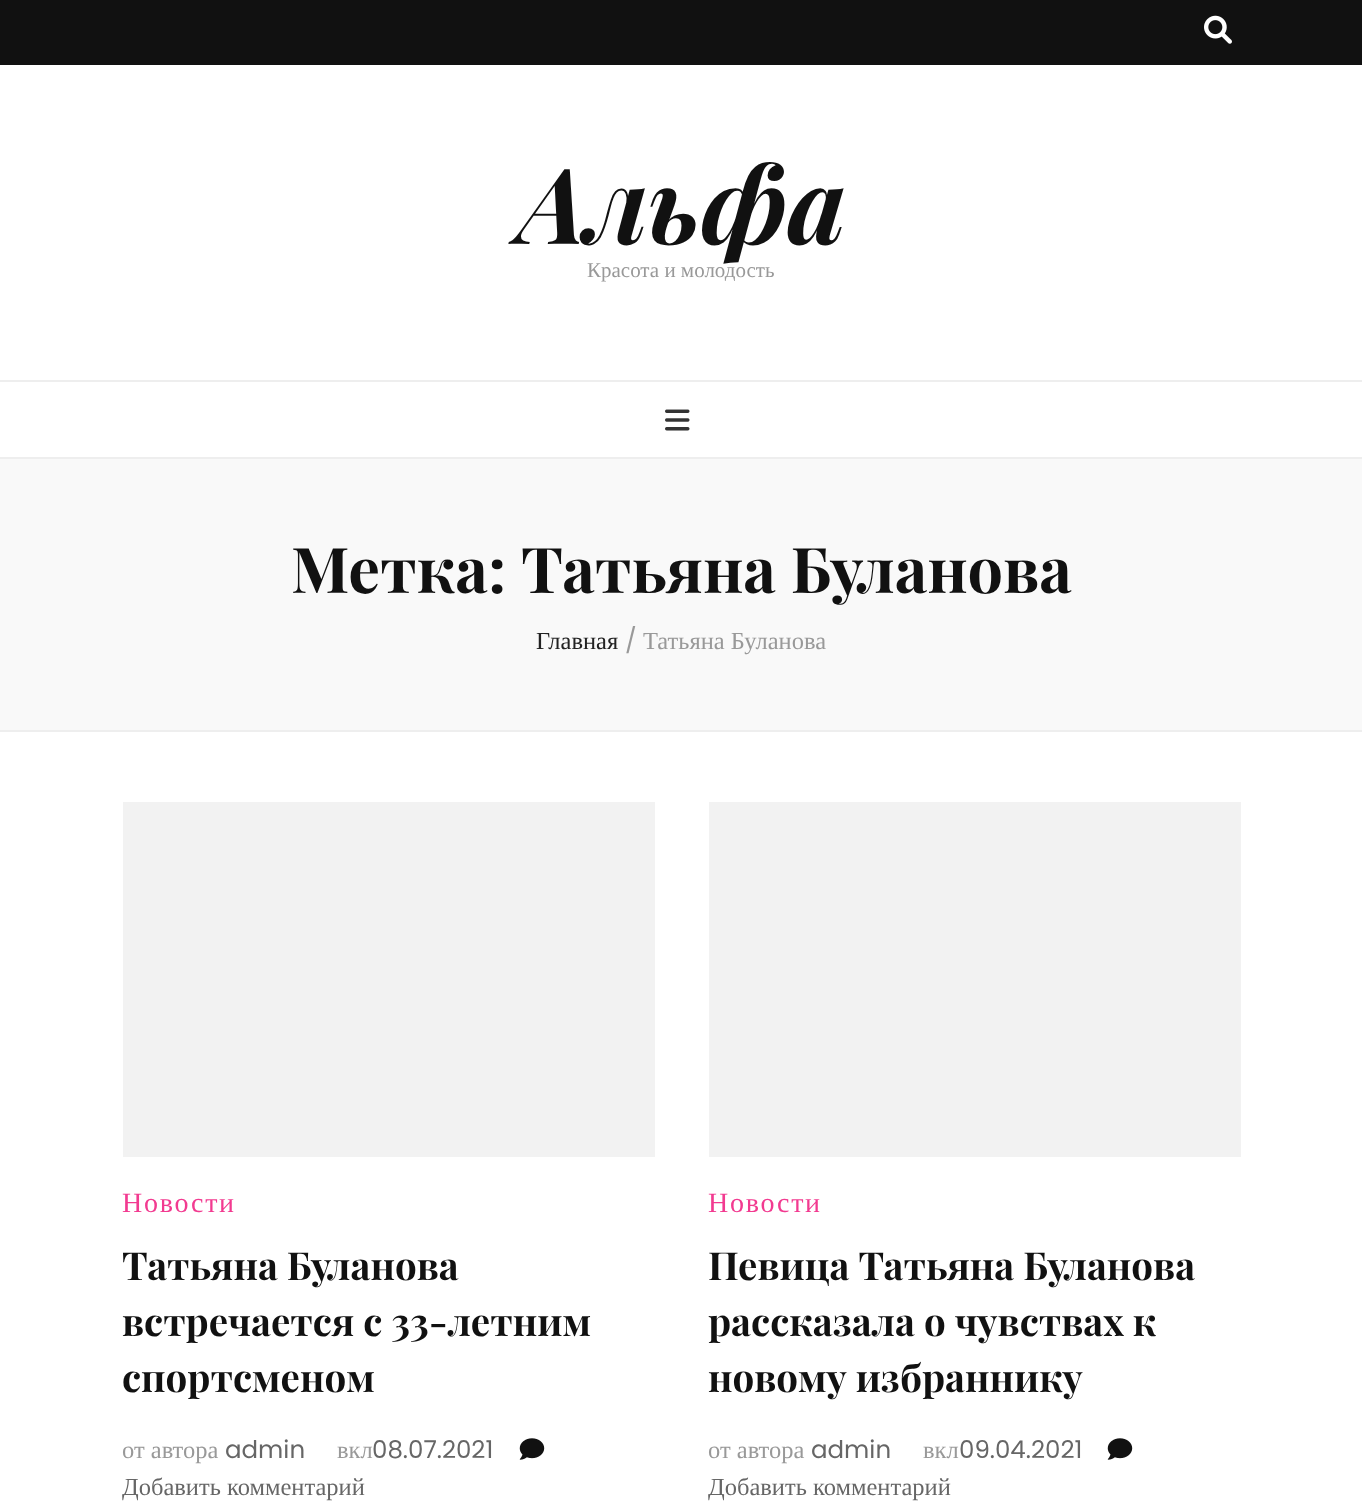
<svg xmlns="http://www.w3.org/2000/svg" xmlns:xlink="http://www.w3.org/1999/xlink" width="1362" height="1507" viewBox="0 0 1362 1507">
<style>
.cls-1{font:italic bold 105px Playfair Display;fill:#111111}
.cls-2{font:21px Liberation Serif;fill:#999999}
.cls-3{font:bold 63px Playfair Display;fill:#111111}
.cls-4{font:24.5px Liberation Serif;fill:#222222}
.cls-5{font:24.5px Poppins;fill:#999999}
.cls-6{font:24.5px Liberation Serif;fill:#999999}
.cls-7{font:28px Liberation Serif;letter-spacing:1.75px;fill:#f23a90}
.cls-8{font:bold 38.5px Playfair Display;fill:#111111}
.cls-9{font:24.5px Poppins;fill:#666666}
.cls-10{font:24.5px Liberation Serif;fill:#666666}
</style>
<rect width="100%" height="100%" fill="#ffffff"/>
<rect fill="#111111" x="0" y="0" width="1362" height="65"/>
<image xlink:href="image0.png" x="1204" y="15" width="28" height="29"/>
<rect fill="#eeeeee" x="0" y="380" width="1362" height="2"/>
<rect fill="#eeeeee" x="0" y="457" width="1362" height="2"/>
<image xlink:href="image1.png" x="665" y="409" width="25" height="22"/>
<rect fill="#f9f9f9" x="0" y="459" width="1362" height="271"/>
<rect fill="#eeeeee" x="0" y="730" width="1362" height="2"/>
<rect fill="#f2f2f2" x="123" y="802" width="532" height="355"/>
<image xlink:href="image2.png" x="519" y="1438" width="26" height="22"/>
<rect fill="#f2f2f2" x="709" y="802" width="532" height="355"/>
<image xlink:href="image2.png" x="1107" y="1438" width="26" height="22"/>
<text class="cls-1" x="518" y="244">Альфа</text>
<text class="cls-2" x="587" y="277">Красота и молодость</text>
<text class="cls-3" x="291" y="593">Метка: Татьяна Буланова</text>
<text class="cls-4" x="536" y="649">Главная</text>
<text class="cls-5" x="625" y="649">/</text>
<text class="cls-6" x="643" y="649">Татьяна Буланова</text>
<text class="cls-7" x="122" y="1212">Новости</text>
<text class="cls-8"><tspan x="122" y="1280">Татьяна Буланова</tspan><tspan x="122" y="1336">встречается с 33-летним</tspan><tspan x="122" y="1392">спортсменом</tspan></text>
<text class="cls-6" x="122" y="1458">от автора</text>
<text class="cls-9" x="225" y="1458">admin</text>
<text class="cls-6" x="337" y="1458">вкл</text>
<text class="cls-9" x="372" y="1458">08.07.2021</text>
<text class="cls-10" x="122" y="1495">Добавить комментарий</text>
<text class="cls-7" x="708" y="1212">Новости</text>
<text class="cls-8"><tspan x="708" y="1280">Певица Татьяна Буланова</tspan><tspan x="708" y="1336">рассказала о чувствах к</tspan><tspan x="708" y="1392">новому избраннику</tspan></text>
<text class="cls-6" x="708" y="1458">от автора</text>
<text class="cls-9" x="811" y="1458">admin</text>
<text class="cls-6" x="923" y="1458">вкл</text>
<text class="cls-9" x="959" y="1458">09.04.2021</text>
<text class="cls-10" x="708" y="1495">Добавить комментарий</text>
</svg>
